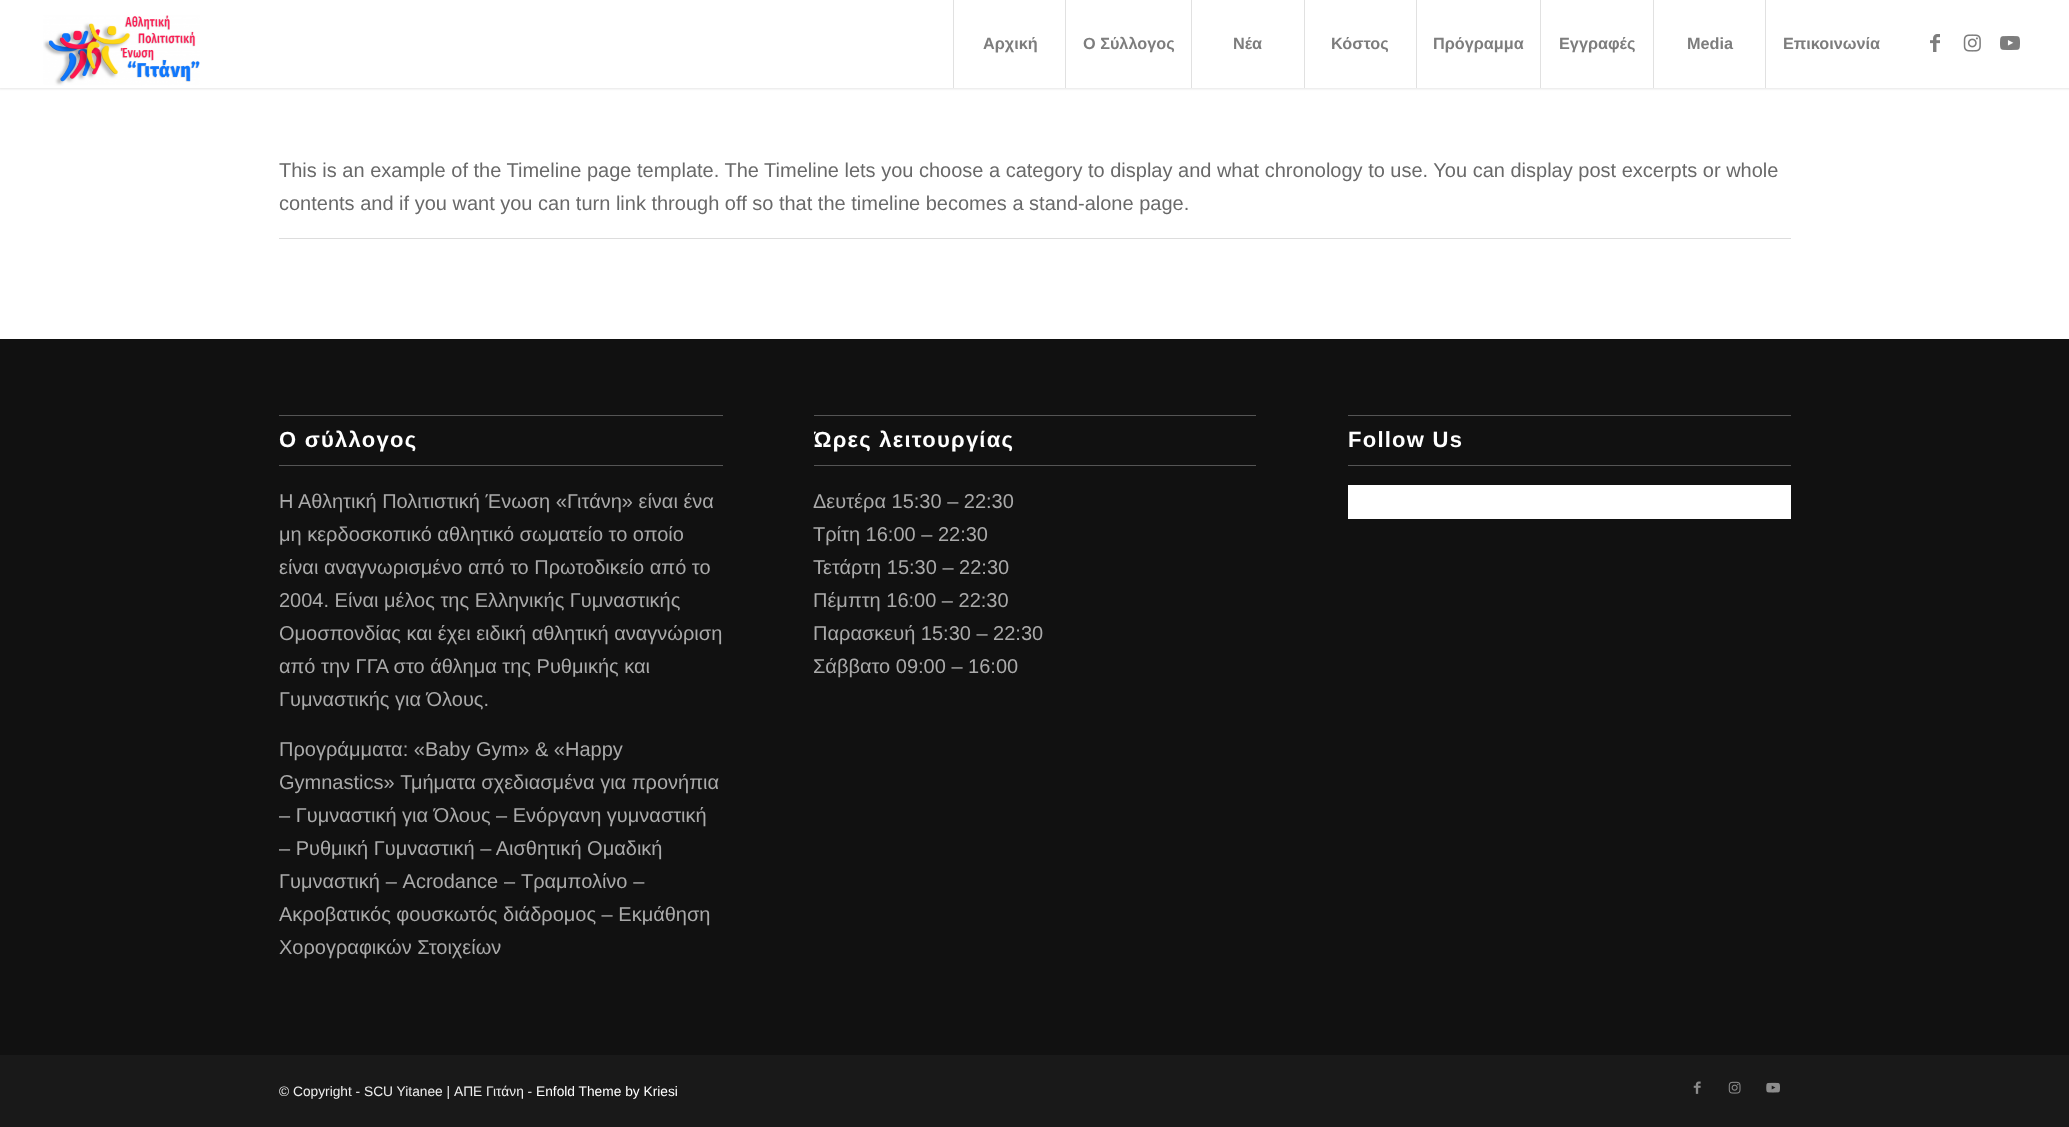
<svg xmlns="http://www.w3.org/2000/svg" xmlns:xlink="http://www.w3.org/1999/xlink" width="2069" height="1127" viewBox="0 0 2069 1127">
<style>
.cls-1{font:bold 16.25px Liberation Sans;fill:#7d7d7d}
.cls-2{font:20px Liberation Sans;fill:#696969}
.cls-3{font:bold 22px Liberation Sans;letter-spacing:1.25px;fill:#ffffff}
.cls-4{font:20px Liberation Sans;fill:#aaaaaa}
.cls-5{font:13.75px Liberation Sans;fill:#eeeeee}
.cls-6{font:13.75px Liberation Sans;fill:#ffffff}
</style>
<defs>
<clipPath id="clip1"><rect x="814" y="396" width="442" height="288"/></clipPath>
</defs>
<rect width="100%" height="100%" fill="#ffffff"/>
<rect fill="#000000" fill-opacity="0.1" filter="blur(1px)" x="-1" y="-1" width="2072" height="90"/>
<rect fill="#ffffff" x="0" y="0" width="2069" height="88"/>
<image xlink:href="image0.png" x="43" y="15" width="157" height="71"/>
<rect fill="#e1e1e1" x="953" y="0" width="1" height="88"/>
<rect fill="#e1e1e1" x="1065" y="0" width="1" height="88"/>
<rect fill="#e1e1e1" x="1191" y="0" width="1" height="88"/>
<rect fill="#e1e1e1" x="1304" y="0" width="1" height="88"/>
<rect fill="#e1e1e1" x="1416" y="0" width="1" height="88"/>
<rect fill="#e1e1e1" x="1540" y="0" width="1" height="88"/>
<rect fill="#e1e1e1" x="1653" y="0" width="1" height="88"/>
<rect fill="#e1e1e1" x="1765" y="0" width="1" height="88"/>
<image xlink:href="image1.png" x="1930" y="34" width="10" height="18"/>
<image xlink:href="image2.png" x="1963" y="34" width="18" height="18"/>
<image xlink:href="image3.png" x="2000" y="36" width="20" height="14"/>
<rect fill="#dddddd" x="279" y="238" width="1512" height="1"/>
<rect fill="#111111" x="0" y="339" width="2069" height="716"/>
<rect fill="#555555" x="279" y="415" width="444" height="1"/>
<rect fill="#555555" x="279" y="465" width="444" height="1"/>
<rect fill="#555555" x="814" y="415" width="442" height="1"/>
<rect fill="#555555" x="814" y="465" width="442" height="1"/>
<rect fill="#555555" x="1348" y="415" width="443" height="1"/>
<rect fill="#555555" x="1348" y="465" width="443" height="1"/>
<rect fill="#ffffff" x="1348" y="485" width="443" height="34"/>
<rect fill="#191919" x="0" y="1055" width="2069" height="72"/>
<image xlink:href="image4.png" x="1693" y="1081" width="8" height="13"/>
<image xlink:href="image5.png" x="1728" y="1081" width="13" height="13"/>
<image xlink:href="image6.png" x="1766" y="1082" width="14" height="11"/>
<text class="cls-1" x="983" y="49">Αρχική</text>
<text class="cls-1" x="1083" y="49">Ο Σύλλογος</text>
<text class="cls-1" x="1233" y="49">Νέα</text>
<text class="cls-1" x="1331" y="49">Κόστος</text>
<text class="cls-1" x="1433" y="49">Πρόγραμμα</text>
<text class="cls-1" x="1559" y="49">Εγγραφές</text>
<text class="cls-1" x="1687" y="49">Media</text>
<text class="cls-1" x="1783" y="49">Επικοινωνία</text>
<text class="cls-2"><tspan x="279" y="177">This is an example of the Timeline page template. The Timeline lets you choose a category to display and what chronology to use. You can display post excerpts or whole</tspan><tspan x="279" y="210">contents and if you want you can turn link through off so that the timeline becomes a stand-alone page.</tspan></text>
<text class="cls-3" x="279" y="447">Ο σύλλογος</text>
<text class="cls-4"><tspan x="279" y="508">Η Αθλητική Πολιτιστική Ένωση «Γιτάνη» είναι ένα</tspan><tspan x="279" y="541">μη κερδοσκοπικό αθλητικό σωματείο το οποίο</tspan><tspan x="279" y="574">είναι αναγνωρισμένο από το Πρωτοδικείο από το</tspan><tspan x="279" y="607">2004. Είναι μέλος της Ελληνικής Γυμναστικής</tspan><tspan x="279" y="640">Ομοσπονδίας και έχει ειδική αθλητική αναγνώριση</tspan><tspan x="279" y="673">από την ΓΓΑ στο άθλημα της Ρυθμικής και</tspan><tspan x="279" y="706">Γυμναστικής για Όλους.</tspan></text>
<text class="cls-4"><tspan x="279" y="756">Προγράμματα: «Baby Gym» &amp; «Happy</tspan><tspan x="279" y="789">Gymnastics» Τμήματα σχεδιασμένα για προνήπια</tspan><tspan x="279" y="822">– Γυμναστική για Όλους – Ενόργανη γυμναστική</tspan><tspan x="279" y="855">– Ρυθμική Γυμναστική – Αισθητική Ομαδική</tspan><tspan x="279" y="888" word-spacing="0.25">Γυμναστική – Acrodance – Τραμπολίνο –</tspan><tspan x="279" y="921">Ακροβατικός φουσκωτός διάδρομος – Εκμάθηση</tspan><tspan x="279" y="954">Χορογραφικών Στοιχείων</tspan></text>
<g clip-path="url(#clip1)">
<text class="cls-3" x="813" y="447">Ώρες λειτουργίας</text>
</g>
<text class="cls-4"><tspan x="813" y="508">Δευτέρα 15:30 – 22:30</tspan><tspan x="813" y="541">Τρίτη 16:00 – 22:30</tspan><tspan x="813" y="574">Τετάρτη 15:30 – 22:30</tspan><tspan x="813" y="607">Πέμπτη 16:00 – 22:30</tspan><tspan x="813" y="640">Παρασκευή 15:30 – 22:30</tspan><tspan x="813" y="673">Σάββατο 09:00 – 16:00</tspan></text>
<text class="cls-3" x="1348" y="447">Follow Us</text>
<text class="cls-5" x="279" y="1096">© Copyright - SCU Yitanee | ΑΠΕ Γιτάνη -</text>
<text class="cls-6" x="536" y="1096">Enfold Theme by Kriesi</text>
</svg>
